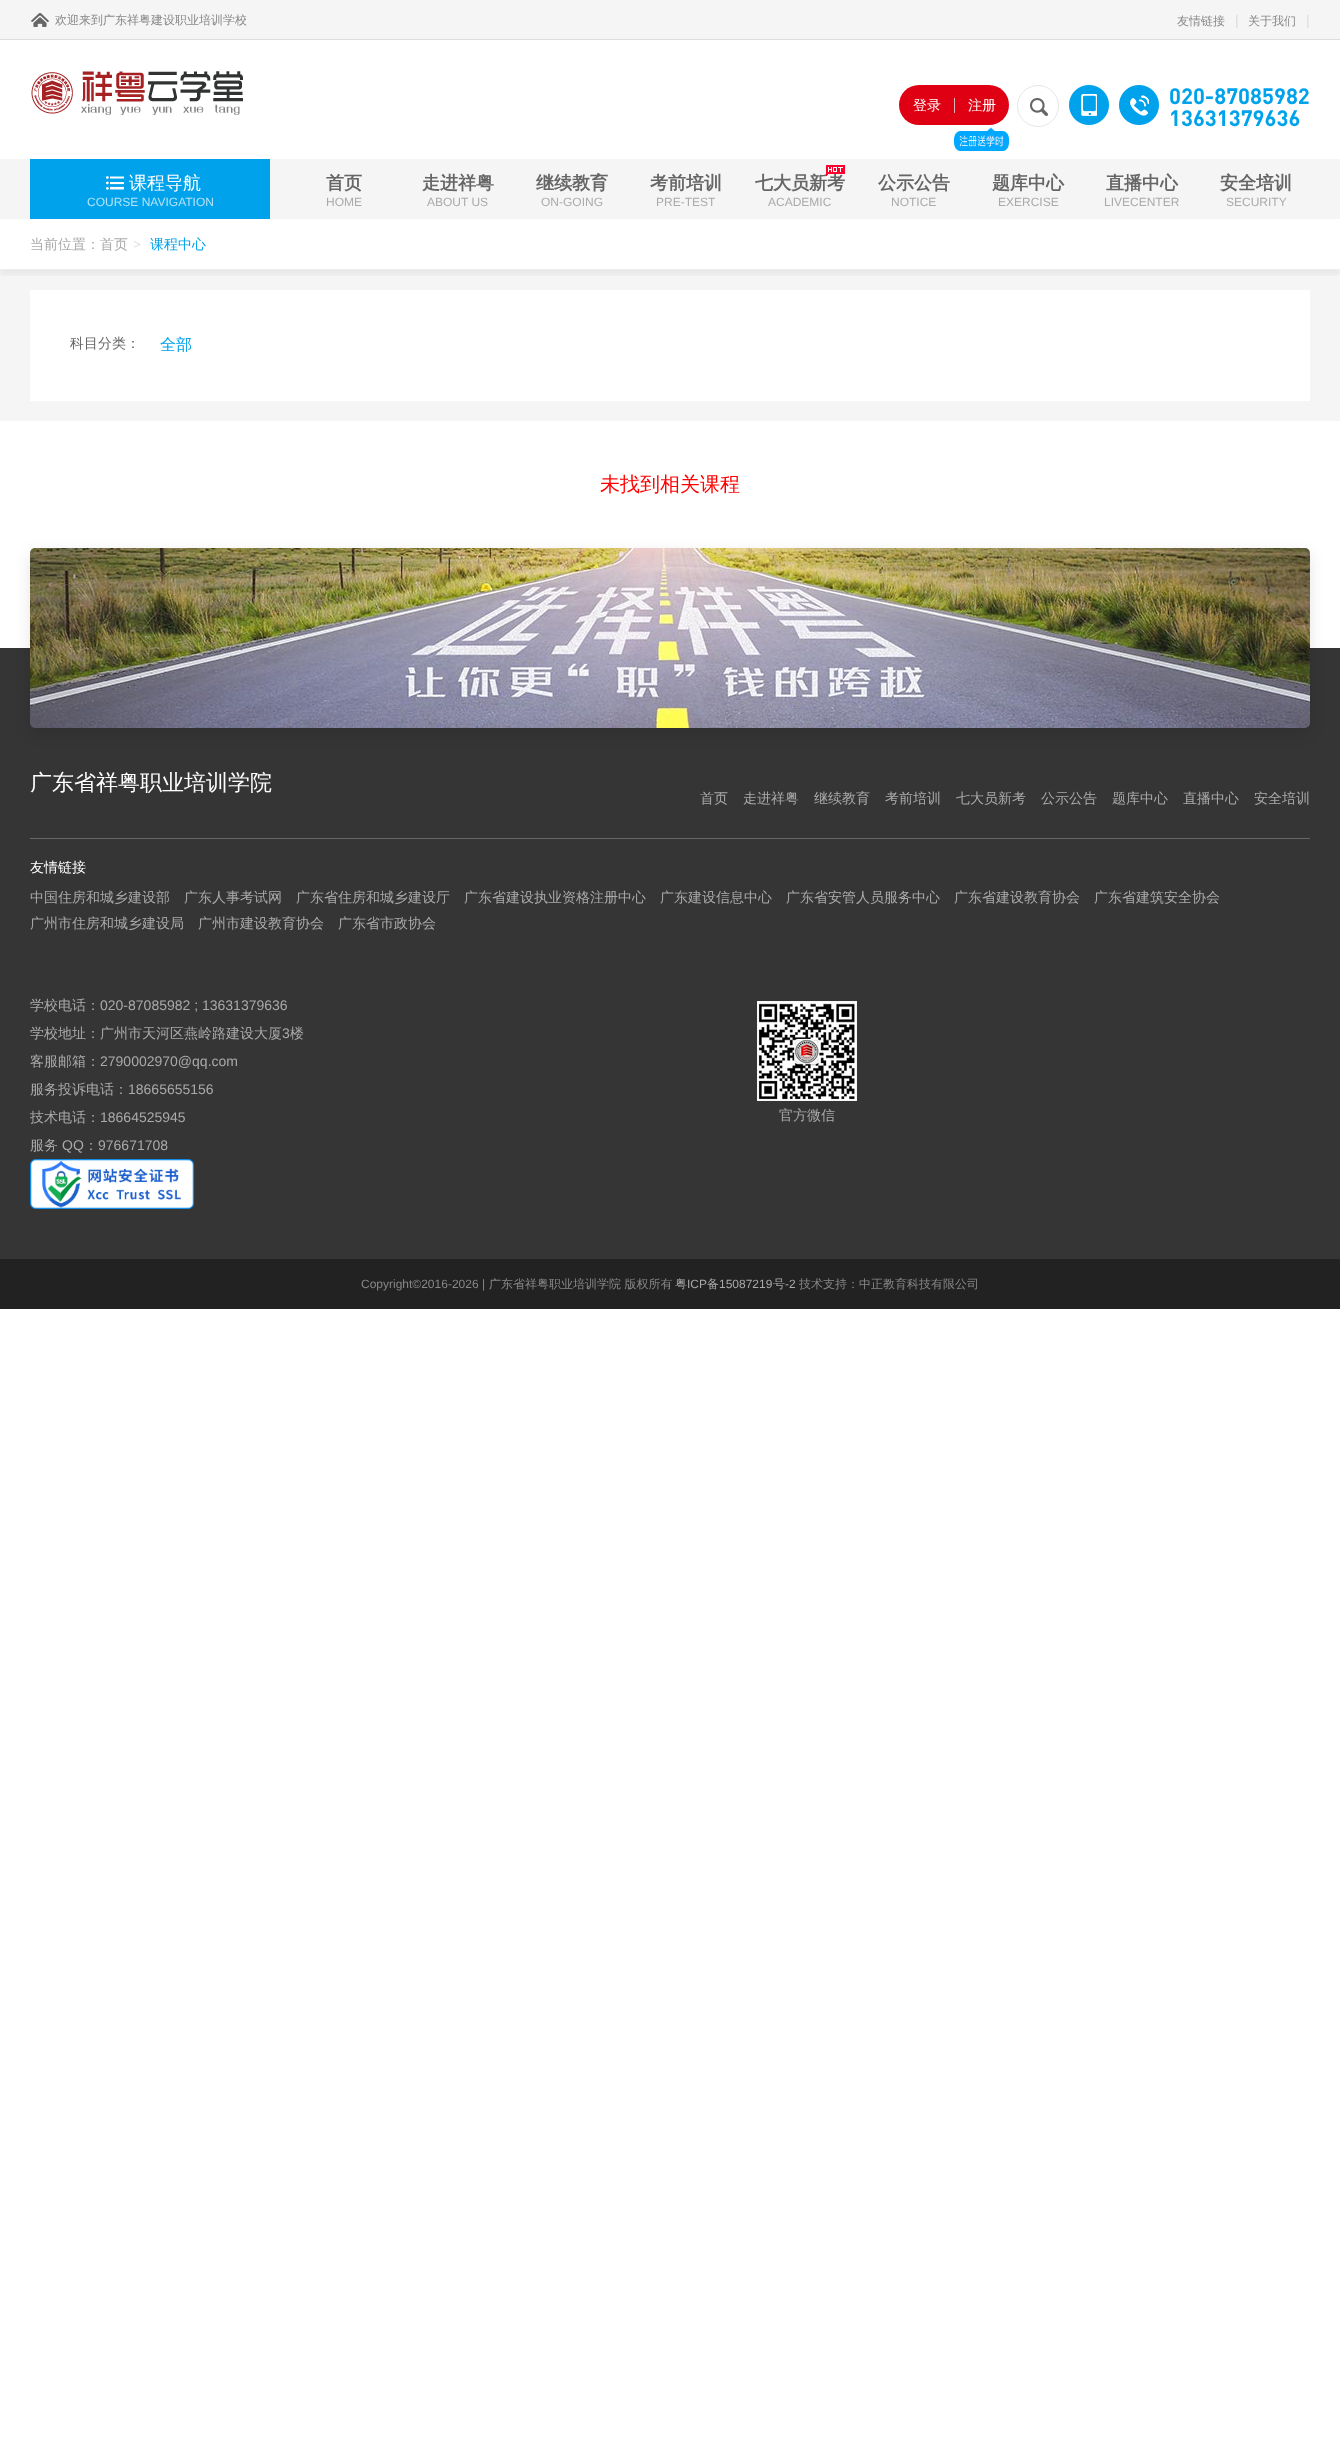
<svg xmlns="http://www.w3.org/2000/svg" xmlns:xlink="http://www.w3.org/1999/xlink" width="1340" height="2437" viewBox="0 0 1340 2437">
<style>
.cls-1{font:500 12px WenQuanYi Zen Hei;fill:#888888}
.cls-2{font:14px Liberation Sans;fill:#dddddd}
.cls-3{font:500 14px WenQuanYi Zen Hei;fill:#ffffff}
.cls-4{font:bold 22px DIN;fill:#00a2eb}
.cls-5{font:500 18px WenQuanYi Zen Hei;fill:#ffffff}
.cls-6{font:12px Liberation Sans;fill:#b3e3f9}
.cls-7{font:bold 18px WenQuanYi Zen Hei;fill:#666666}
.cls-8{font:12px Liberation Sans;fill:#aaaaaa}
.cls-9{font:500 14px WenQuanYi Zen Hei;fill:#aaaaaa}
.cls-10{font:bold 14px Liberation Serif;fill:#dddddd}
.cls-11{font:500 14px WenQuanYi Zen Hei;fill:#00a2eb}
.cls-12{font:500 14px WenQuanYi Zen Hei;fill:#666666}
.cls-13{font:500 16px WenQuanYi Zen Hei;fill:#00a2eb}
.cls-14{font:500 20px WenQuanYi Zen Hei;fill:#ff0000}
.cls-15{font:500 22px WenQuanYi Zen Hei;fill:#ffffff}
.cls-16{font:14px Liberation Sans;fill:#aaaaaa}
.cls-17{font:12px Liberation Sans;fill:#888888}
.cls-18{font:500 12px WenQuanYi Zen Hei;fill:#aaaaaa}
</style>
<defs>
<clipPath id="clip1"><rect x="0" y="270" width="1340" height="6"/></clipPath>
</defs>
<rect width="100%" height="100%" fill="#ffffff"/>
<rect fill="#f5f5f5" x="0" y="0" width="1340" height="39"/>
<rect fill="#dddddd" x="0" y="39" width="1340" height="1"/>
<image xlink:href="image0.png" x="31" y="13" width="18" height="14"/>
<image xlink:href="image1.png" x="31" y="71" width="212" height="44"/>
<rect fill="#e00013" x="899" y="85" width="110" height="40" rx="20"/>
<rect fill="#deb5b7" x="954" y="98" width="1" height="15"/>
<image xlink:href="image2.png" x="954" y="127" width="55" height="24"/>
<circle fill="none" stroke="#e7e7e7" cx="1038" cy="106" r="20.5"/>
<image xlink:href="image3.png" x="1030" y="98" width="18" height="18"/>
<image xlink:href="image4.png" x="1069" y="85" width="40" height="40"/>
<image xlink:href="image5.png" x="1119" y="85" width="40" height="40"/>
<rect fill="#f5f5f5" x="0" y="270" width="1340" height="151"/>
<g clip-path="url(#clip1)">
<rect fill="#000000" fill-opacity="0.05" filter="blur(2.5px)" x="0" y="224" width="1340" height="51"/>
</g>
<rect fill="#f5f5f5" x="0" y="159" width="1340" height="60"/>
<rect fill="#00a2eb" x="30" y="159" width="240" height="60"/>
<image xlink:href="image6.png" x="106" y="176" width="18" height="14"/>
<rect fill="#eeeeee" x="0" y="269" width="1340" height="1"/>
<rect fill="#ffffff" x="30" y="290" width="1280" height="111"/>
<rect fill="#353535" x="0" y="648" width="1340" height="611"/>
<rect fill="#000000" fill-opacity="0.1" filter="blur(7.5px)" x="30" y="553" width="1280" height="180" rx="5"/>
<image xlink:href="image8.png" x="30" y="548" width="1280" height="180"/>
<rect fill="#666666" x="30" y="838" width="1280" height="1"/>
<image xlink:href="image9.png" x="30" y="1159" width="164" height="50"/>
<image xlink:href="image10.png" x="757" y="1001" width="100" height="100"/>
<rect fill="#222222" x="0" y="1259" width="1340" height="50"/>
<text class="cls-1" x="55" y="24">欢迎来到广东祥粤建设职业培训学校</text>
<text class="cls-1" x="1177" y="25">友情链接</text>
<text class="cls-2" x="1235" y="25">|</text>
<text class="cls-1" x="1248" y="25">关于我们</text>
<text class="cls-2" x="1306" y="25">|</text>
<text class="cls-3" x="913" y="110">登录</text>
<text class="cls-3" x="968" y="110">注册</text>
<text class="cls-4"><tspan x="1169" y="104">020-87085982</tspan><tspan x="1169" y="126">13631379636</tspan></text>
<text class="cls-5" x="129" y="189">课程导航</text>
<text class="cls-6" x="87" y="206">COURSE NAVIGATION</text>
<text class="cls-7" x="326" y="189">首页</text>
<text class="cls-8" x="326" y="206">HOME</text>
<text class="cls-7" x="422" y="189">走进祥粤</text>
<text class="cls-8" x="427" y="206">ABOUT US</text>
<text class="cls-7" x="536" y="189">继续教育</text>
<text class="cls-8" x="541" y="206">ON-GOING</text>
<text class="cls-7" x="650" y="189">考前培训</text>
<text class="cls-8" x="656" y="206">PRE-TEST</text>
<text class="cls-7" x="755" y="189">七大员新考</text>
<image xlink:href="image7.png" x="826" y="165" width="19" height="11"/>
<text class="cls-8" x="768" y="206">ACADEMIC</text>
<text class="cls-7" x="878" y="189">公示公告</text>
<text class="cls-8" x="891" y="206">NOTICE</text>
<text class="cls-7" x="992" y="189">题库中心</text>
<text class="cls-8" x="998" y="206">EXERCISE</text>
<text class="cls-7" x="1106" y="189">直播中心</text>
<text class="cls-8" x="1104" y="206">LIVECENTER</text>
<text class="cls-7" x="1220" y="189">安全培训</text>
<text class="cls-8" x="1226" y="206">SECURITY</text>
<text class="cls-9" x="30" y="249">当前位置：首页</text>
<text class="cls-10" x="133" y="249">&gt;</text>
<text class="cls-11" x="150" y="249">课程中心</text>
<text class="cls-12" x="70" y="348">科目分类：</text>
<text class="cls-13" x="160" y="350">全部</text>
<text class="cls-14" x="600" y="491">未找到相关课程</text>
<text class="cls-15" x="30" y="790">广东省祥粤职业培训学院</text>
<text class="cls-9" x="700" y="803">首页</text>
<text class="cls-9" x="743" y="803">走进祥粤</text>
<text class="cls-9" x="814" y="803">继续教育</text>
<text class="cls-9" x="885" y="803">考前培训</text>
<text class="cls-9" x="956" y="803">七大员新考</text>
<text class="cls-9" x="1041" y="803">公示公告</text>
<text class="cls-9" x="1112" y="803">题库中心</text>
<text class="cls-9" x="1183" y="803">直播中心</text>
<text class="cls-9" x="1254" y="803">安全培训</text>
<text class="cls-3" x="30" y="872">友情链接</text>
<text class="cls-9" x="30" y="902">中国住房和城乡建设部</text>
<text class="cls-9" x="184" y="902">广东人事考试网</text>
<text class="cls-9" x="296" y="902">广东省住房和城乡建设厅</text>
<text class="cls-9" x="464" y="902">广东省建设执业资格注册中心</text>
<text class="cls-9" x="660" y="902">广东建设信息中心</text>
<text class="cls-9" x="786" y="902">广东省安管人员服务中心</text>
<text class="cls-9" x="954" y="902">广东省建设教育协会</text>
<text class="cls-9" x="1094" y="902">广东省建筑安全协会</text>
<text class="cls-9" x="30" y="928">广州市住房和城乡建设局</text>
<text class="cls-9" x="198" y="928">广州市建设教育协会</text>
<text class="cls-9" x="338" y="928">广东省市政协会</text>
<text class="cls-9" x="30" y="1010">学校电话：</text>
<text class="cls-16" x="100" y="1010">020-87085982 ; 13631379636</text>
<text class="cls-9" x="30" y="1038">学校地址：广州市天河区燕岭路建设大厦</text>
<text class="cls-16" x="282" y="1038">3</text>
<text class="cls-9" x="290" y="1038">楼</text>
<text class="cls-9" x="30" y="1066">客服邮箱：</text>
<text class="cls-16" x="100" y="1066">2790002970@qq.com</text>
<text class="cls-9" x="30" y="1094">服务投诉电话：</text>
<text class="cls-16" x="128" y="1094">18665655156</text>
<text class="cls-9" x="30" y="1122">技术电话：</text>
<text class="cls-16" x="100" y="1122">18664525945</text>
<text class="cls-9" x="30" y="1150">服务</text>
<text class="cls-16" x="62" y="1150">QQ</text>
<text class="cls-9" x="84" y="1150">：</text>
<text class="cls-16" x="98" y="1150">976671708</text>
<text class="cls-9" x="779" y="1120">官方微信</text>
<text class="cls-17" x="361" y="1288">Copyright©2016-2026 |</text>
<text class="cls-1" x="489" y="1288">广东省祥粤职业培训学院 版权所有</text>
<text class="cls-18" x="675" y="1288">粤</text>
<text class="cls-8" x="687" y="1288">ICP</text>
<text class="cls-18" x="707" y="1288">备</text>
<text class="cls-8" x="719" y="1288">15087219</text>
<text class="cls-18" x="773" y="1288">号</text>
<text class="cls-8" x="785" y="1288">-2</text>
<text class="cls-1" x="799" y="1288">技术支持：中正教育科技有限公司</text>
</svg>
